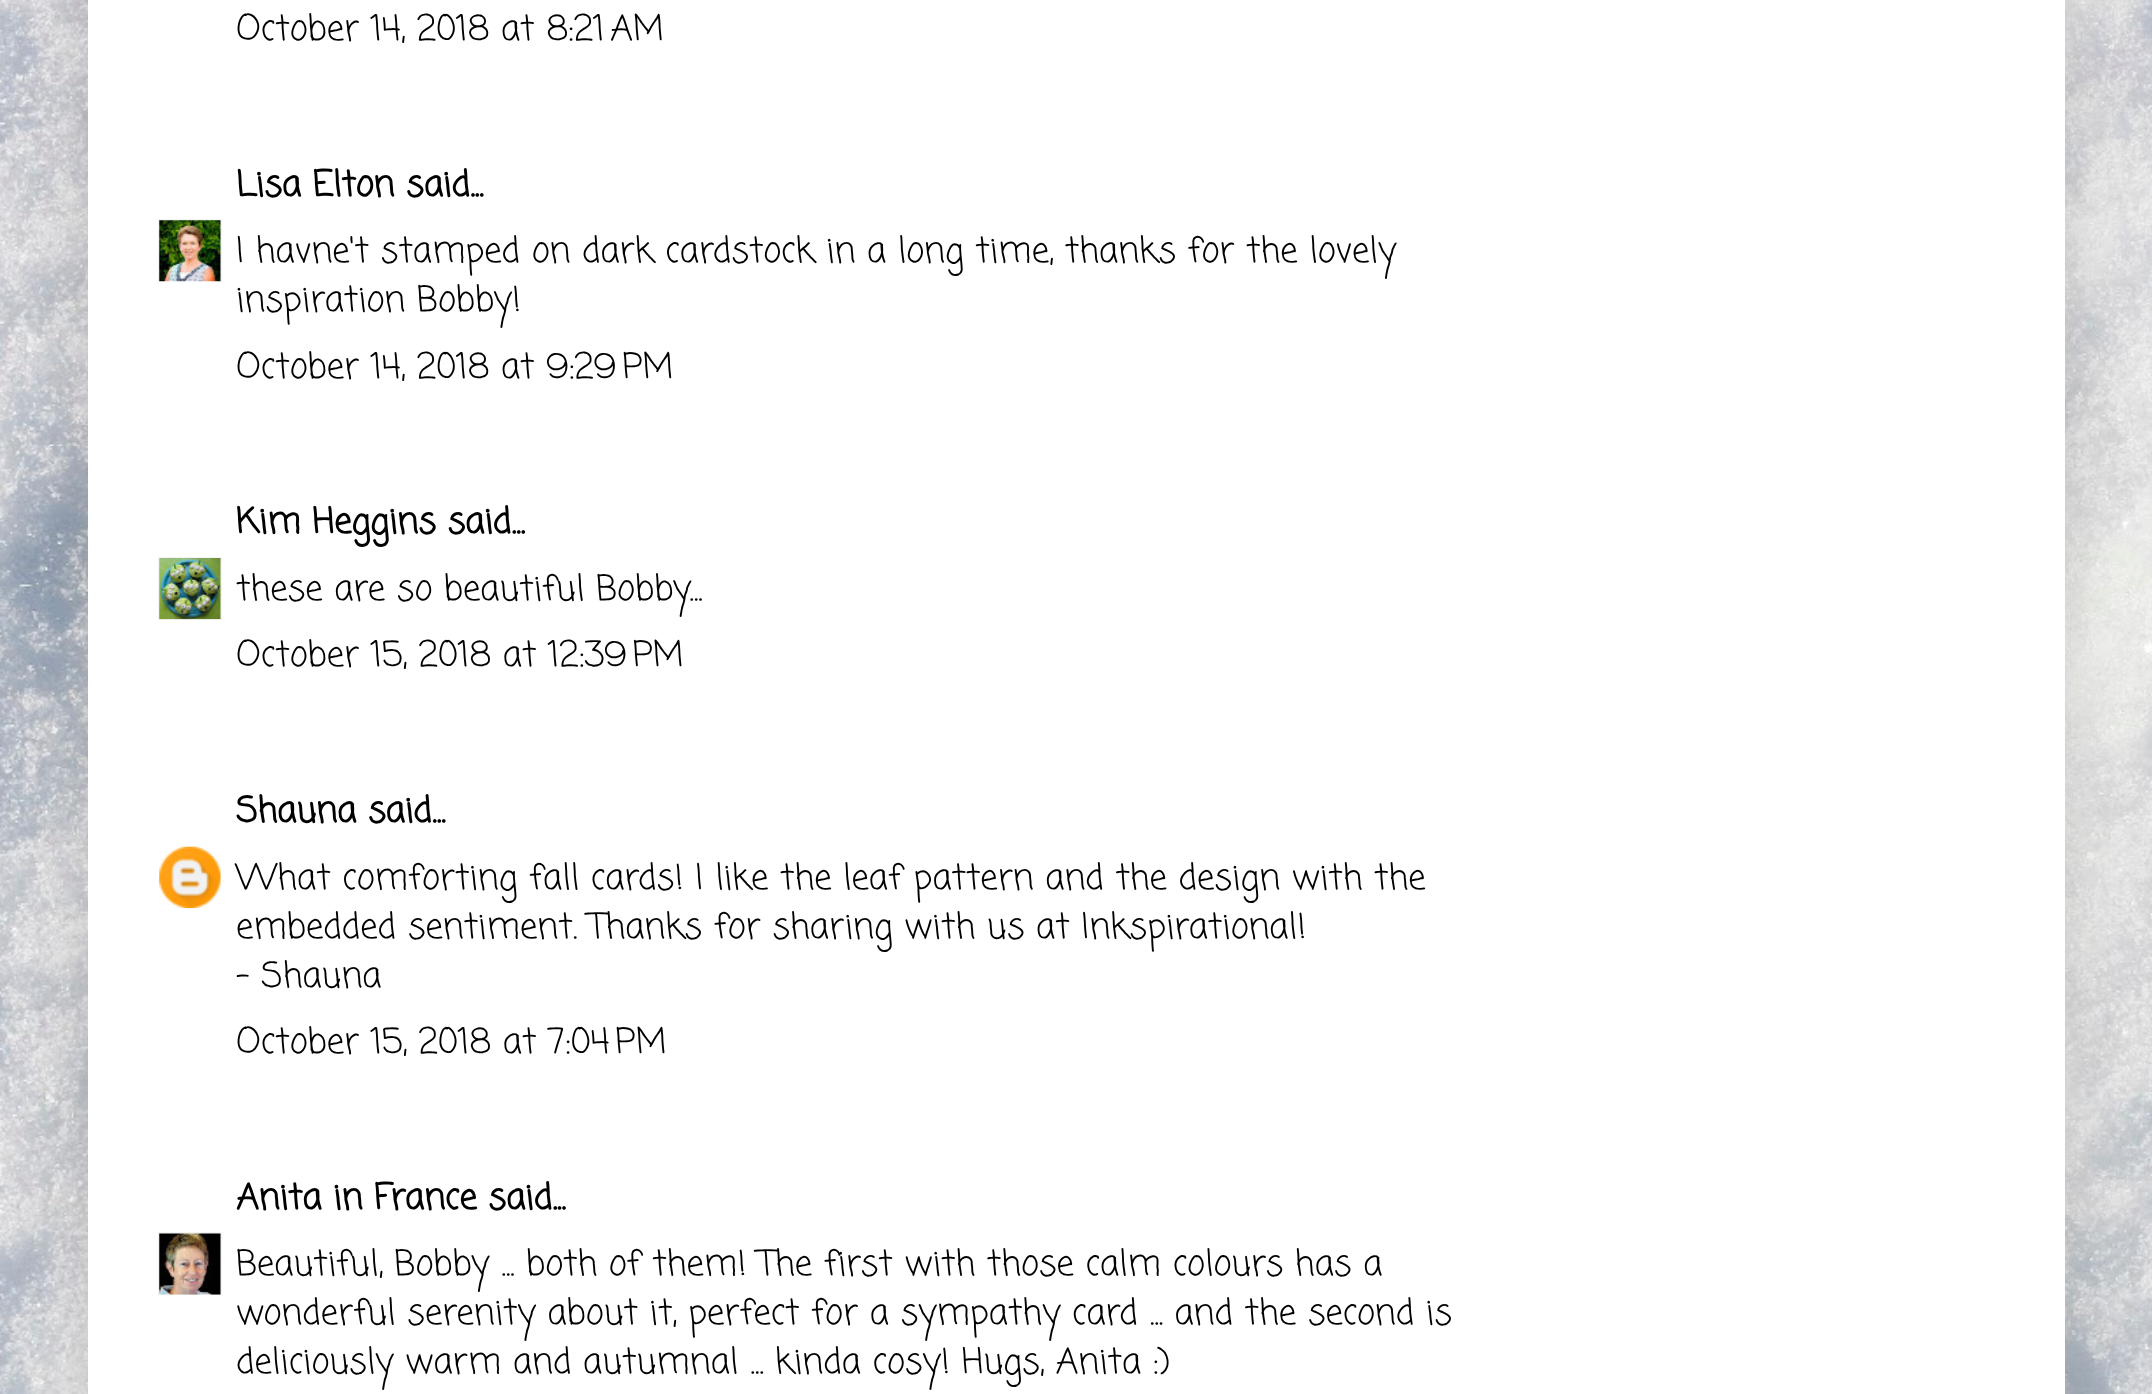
<svg xmlns="http://www.w3.org/2000/svg" xmlns:xlink="http://www.w3.org/1999/xlink" width="2152" height="1394" viewBox="0 0 2152 1394">
<style>
.cls-1{font:35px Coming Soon;fill:#000000}
.cls-2{font:bold 35px Coming Soon;fill:#000000}
</style>
<defs>
<clipPath id="clip1"><rect x="158" y="219" width="64" height="63"/></clipPath>
<clipPath id="clip2"><rect x="158" y="557" width="64" height="63"/></clipPath>
<clipPath id="clip3"><rect x="158" y="1232" width="64" height="63"/></clipPath>
</defs>
<rect width="100%" height="100%" fill="#ffffff"/>
<image xlink:href="image0.png" x="0" y="0" width="2152" height="1394"/>
<rect fill="#000000" fill-opacity="0.15" filter="blur(35px)" x="88" y="-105" width="1977" height="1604"/>
<rect fill="#ffffff" x="88" y="0" width="1977" height="1394"/>
<g clip-path="url(#clip1)">
<rect fill="none" stroke="#f3f3f3" stroke-width="2" x="159" y="220" width="62" height="63"/>
</g>
<image xlink:href="image1.png" x="159" y="220" width="62" height="62"/>
<g clip-path="url(#clip2)">
<rect fill="none" stroke="#f3f3f3" stroke-width="2" x="159" y="558" width="62" height="62"/>
</g>
<image xlink:href="image2.png" x="159" y="558" width="62" height="62"/>
<image xlink:href="image3.png" x="159" y="846" width="62" height="62"/>
<g clip-path="url(#clip3)">
<rect fill="none" stroke="#f3f3f3" stroke-width="2" x="159" y="1233" width="62" height="63"/>
</g>
<image xlink:href="image4.png" x="159" y="1233" width="62" height="62"/>
<text class="cls-1" x="236" y="40">October 14, 2018 at 8:21 AM</text>
<text class="cls-2" x="236" y="196">Lisa Elton said...</text>
<text class="cls-1"><tspan x="236" y="262">I havne't stamped on dark cardstock in a long time, thanks for the lovely</tspan><tspan x="236" y="311">inspiration Bobby!</tspan><tspan x="236" y="378">October 14, 2018 at 9:29 PM</tspan></text>
<text class="cls-2" x="236" y="533">Kim Heggins said...</text>
<text class="cls-1"><tspan x="236" y="600">these are so beautiful Bobby...</tspan><tspan x="236" y="666">October 15, 2018 at 12:39 PM</tspan></text>
<text class="cls-2" x="236" y="822">Shauna said...</text>
<text class="cls-1"><tspan x="236" y="889">What comforting fall cards! I like the leaf pattern and the design with the</tspan><tspan x="236" y="938">embedded sentiment. Thanks for sharing with us at Inkspirational!</tspan><tspan x="236" y="987">- Shauna</tspan><tspan x="236" y="1053">October 15, 2018 at 7:04 PM</tspan></text>
<text class="cls-2" x="236" y="1209">Anita in France said...</text>
<text class="cls-1"><tspan x="236" y="1275">Beautiful, Bobby ... both of them! The first with those calm colours has a</tspan><tspan x="236" y="1324">wonderful serenity about it, perfect for a sympathy card ... and the second is</tspan><tspan x="236" y="1373">deliciously warm and autumnal ... kinda cosy! Hugs, Anita :)</tspan></text>
</svg>
